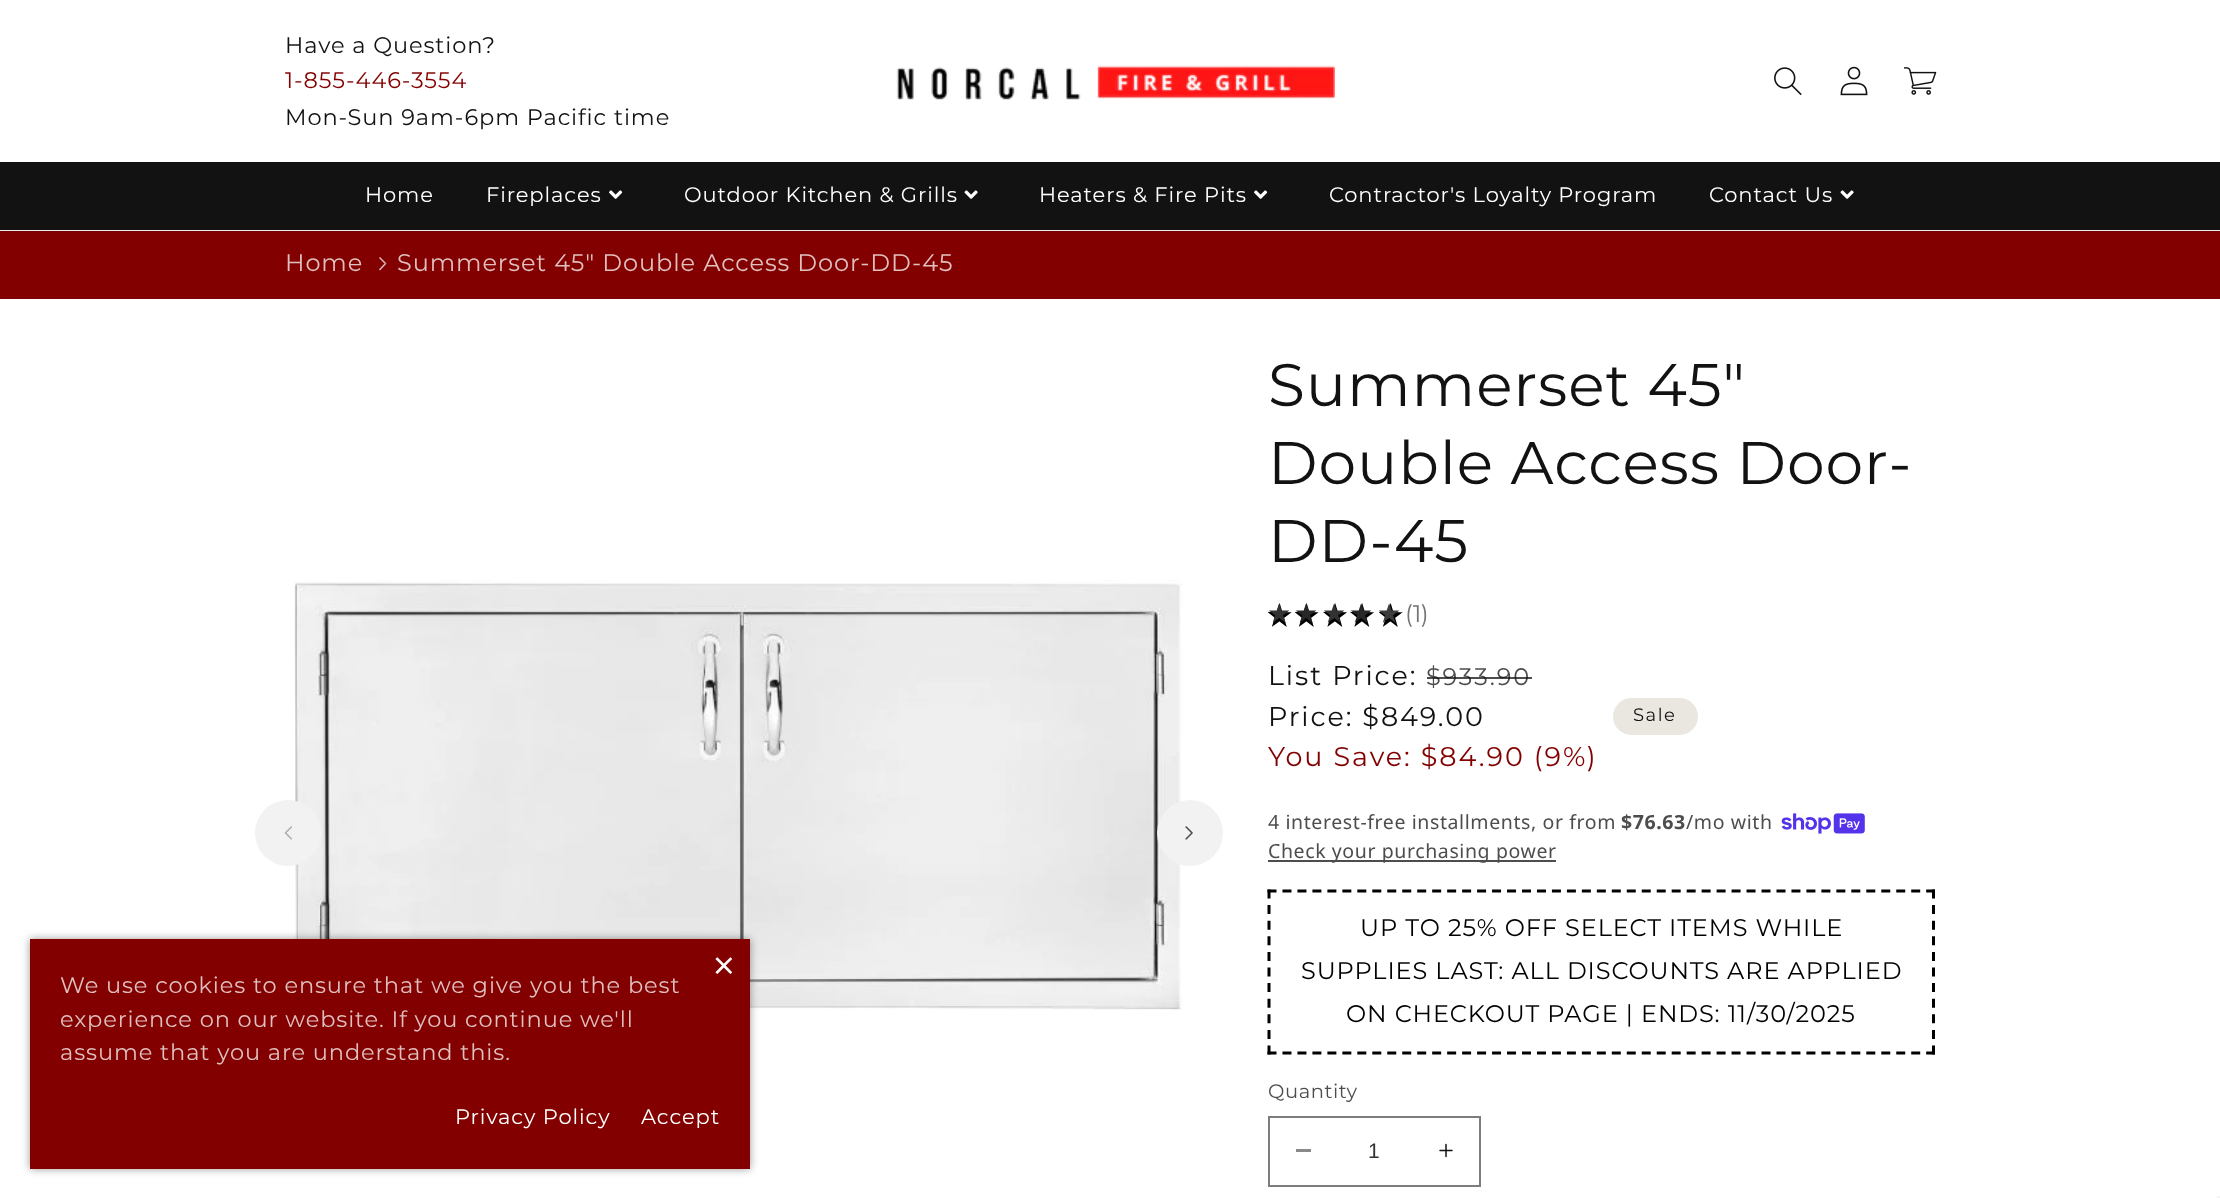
<svg xmlns="http://www.w3.org/2000/svg" xmlns:xlink="http://www.w3.org/1999/xlink" width="2220" height="1198" viewBox="0 0 2220 1198">
<style>
.cls-1{font:22.5px Montserrat;letter-spacing:0.9px;fill:#121212}
.cls-2{font:22.5px Montserrat;letter-spacing:0.9px;fill:#830000}
.cls-3{font:21px Montserrat;letter-spacing:0.9px;fill:#ffffff}
.cls-4{font:24px Montserrat;letter-spacing:0.9px;fill:#e0bfbf}
.cls-5{font:60px Montserrat;letter-spacing:0.9px;fill:#121212}
.cls-6{font:bold 24px DejaVu Sans;fill:#323232}
.cls-7{font:bold 24px DejaVu Sans;fill:#272727}
.cls-8{font:bold 24px DejaVu Sans;fill:#3c3c3c}
.cls-9{font:24px Montserrat;letter-spacing:-0.5px;fill:#737373}
.cls-10{font:27px Montserrat;letter-spacing:1.95px;fill:#121212}
.cls-11{font:24px Montserrat;letter-spacing:1.95px;fill:#4d4d4d}
.cls-12{font:27px Montserrat;letter-spacing:1.95px;fill:#830000}
.cls-13{font:18px Montserrat;letter-spacing:1.5px;fill:#121212}
.cls-14{font:19.5px Noto Sans;letter-spacing:0.6px;fill:#4d4d4d}
.cls-15{font:bold 19.5px Noto Sans;letter-spacing:0.6px;fill:#4d4d4d}
.cls-16{font:24px Montserrat;letter-spacing:0.9px;fill:#000000}
.cls-17{font:19.5px Montserrat;letter-spacing:0.6px;fill:#4d4d4d}
.cls-18{font:21px Liberation Sans;fill:#323232}
.cls-19{font:38px Open Sans;letter-spacing:0.9px;fill:#ffffff}
.cls-20{font:22.5px Montserrat;letter-spacing:0.9px;fill:#e0bfbf}
</style>
<rect width="100%" height="100%" fill="#ffffff"/>
<rect fill="#ececec" x="0" y="230" width="2220" height="1"/>
<image xlink:href="image0.png" x="896" y="65" width="439" height="35"/>
<image xlink:href="image1.png" x="1774" y="67" width="28" height="28"/>
<image xlink:href="image2.png" x="1840" y="66" width="28" height="30"/>
<image xlink:href="image3.png" x="1904" y="67" width="33" height="28"/>
<rect fill="#121212" x="0" y="162" width="2220" height="68"/>
<image xlink:href="image4.png" x="609" y="190" width="14" height="9"/>
<image xlink:href="image5.png" x="964" y="190" width="14" height="9"/>
<image xlink:href="image4.png" x="1254" y="190" width="14" height="9"/>
<image xlink:href="image5.png" x="1840" y="190" width="14" height="9"/>
<rect fill="#830000" x="0" y="232" width="2220" height="67"/>
<rect fill="#7a0101" x="0" y="231" width="2220" height="1"/>
<path fill="#e0bfbf" d="M380 257L386.5 263.5H384.5L379 258Z"/>
<path fill="#e0bfbf" d="M386.5 263.5L380 270.5L379 269.5L384.5 263.5Z"/>
<image xlink:href="image6.png" x="294" y="580" width="889" height="430"/>
<circle fill="#f2f2f2" cx="288" cy="833" r="33"/>
<image xlink:href="image7.png" x="284" y="826" width="8" height="14"/>
<circle fill="#f2f2f2" cx="1190" cy="833" r="33"/>
<image xlink:href="image8.png" x="1185" y="826" width="8" height="14"/>
<image xlink:href="image9.png" x="1268" y="603" width="24" height="24"/>
<image xlink:href="image9.png" x="1295" y="603" width="24" height="24"/>
<image xlink:href="image10.png" x="1323" y="603" width="24" height="24"/>
<image xlink:href="image10.png" x="1350" y="603" width="24" height="24"/>
<image xlink:href="image9.png" x="1379" y="603" width="24" height="24"/>
<image xlink:href="image11.png" x="1268" y="603" width="24" height="24"/>
<image xlink:href="image12.png" x="1295" y="603" width="24" height="24"/>
<image xlink:href="image13.png" x="1323" y="603" width="24" height="24"/>
<image xlink:href="image14.png" x="1350" y="603" width="24" height="24"/>
<image xlink:href="image15.png" x="1379" y="603" width="24" height="24"/>
<rect fill="#eae7e0" stroke="#eae7e0" stroke-width="2" x="1614" y="699" width="83" height="35" rx="17.5"/>
<image xlink:href="image16.png" x="1781" y="813" width="84" height="21"/>
<rect fill="#4d4d4d" x="1268" y="860" width="288" height="2"/>
<path fill="none" stroke="#000000" stroke-width="3" stroke-dasharray="9 5.97" d="M1267.5 891H1935"/>
<path fill="none" stroke="#000000" stroke-width="3" stroke-dasharray="9 6.6" d="M1933.5 889.5V1054.5"/>
<path fill="none" stroke="#000000" stroke-width="3" stroke-dasharray="9 5.97" d="M1267.5 1053H1935"/>
<path fill="none" stroke="#000000" stroke-width="3" stroke-dasharray="9 6.6" d="M1269 889.5V1054.5"/>
<rect fill="#898989" x="1296" y="1149" width="15" height="3"/>
<image xlink:href="image17.png" x="1439" y="1143" width="14" height="15"/>
<rect fill="none" stroke="#7d7d7d" stroke-width="2" x="1269" y="1117" width="211" height="69"/>
<rect fill="#000000" fill-opacity="0.4" filter="blur(4px)" x="30" y="939" width="720" height="230"/>
<rect fill="#830000" x="30" y="939" width="720" height="230"/>
<rect fill="#f5f5f5" x="2217" y="1196" width="3" height="2"/>
<text class="cls-1" x="285" y="53">Have a Question?</text>
<text class="cls-2" x="285" y="88">1-855-446-3554</text>
<text class="cls-1" x="285" y="125">Mon-Sun 9am-6pm Pacific time</text>
<text class="cls-3" x="365" y="202">Home</text>
<text class="cls-3" x="486" y="202">Fireplaces</text>
<text class="cls-3" x="684" y="202">Outdoor Kitchen &amp; Grills</text>
<text class="cls-3" x="1039" y="202">Heaters &amp; Fire Pits</text>
<text class="cls-3" x="1329" y="202">Contractor's Loyalty Program</text>
<text class="cls-3" x="1709" y="202">Contact Us</text>
<text class="cls-4" x="285" y="271">Home</text>
<text class="cls-4" x="397" y="271">Summerset 45" Double Access Door-DD-45</text>
<text class="cls-5"><tspan x="1268" y="406">Summerset 45"</tspan><tspan x="1268" y="484">Double Access Door-</tspan><tspan x="1268" y="562">DD-45</tspan></text>
<text class="cls-6" x="1268" y="622">★</text>
<text class="cls-7" x="1295" y="622">★</text>
<text class="cls-6" x="1323" y="622">★</text>
<text class="cls-7" x="1350" y="622">★</text>
<text class="cls-8" x="1378" y="622">★</text>
<text class="cls-9" x="1405" y="622">(1)</text>
<text class="cls-10" x="1268" y="685">List Price:</text>
<text class="cls-11" x="1426" y="685">$933.90</text>
<rect fill="#121212" fill-opacity="0.75" x="1427" y="677" width="105" height="2"/>
<text class="cls-10" x="1268" y="726">Price: $849.00</text>
<text class="cls-12" x="1268" y="766">You Save: $84.90 (9%)</text>
<text class="cls-13" x="1633" y="721">Sale</text>
<text class="cls-14" x="1268" y="829">4 interest-free installments, or from</text>
<text class="cls-15" x="1621" y="829">$76.63</text>
<text class="cls-14" x="1686" y="829">/mo with</text>
<text class="cls-14" x="1268" y="858">Check your purchasing power</text>
<text class="cls-16" x="1360" y="936">UP TO 25% OFF SELECT ITEMS WHILE</text>
<text class="cls-16" x="1301" y="979">SUPPLIES LAST: ALL DISCOUNTS ARE APPLIED</text>
<text class="cls-16" x="1346" y="1022">ON CHECKOUT PAGE | ENDS: 11/30/2025</text>
<text class="cls-17" x="1268" y="1098">Quantity</text>
<text class="cls-18" x="1368" y="1158">1</text>
<text class="cls-19" x="713" y="979">×</text>
<text class="cls-20"><tspan x="60" y="993">We use cookies to ensure that we give you the best</tspan><tspan x="60" y="1027">experience on our website. If you continue we'll</tspan><tspan x="60" y="1060">assume that you are understand this.</tspan></text>
<text class="cls-3" x="455" y="1124">Privacy Policy</text>
<text class="cls-3" x="641" y="1124">Accept</text>
</svg>
